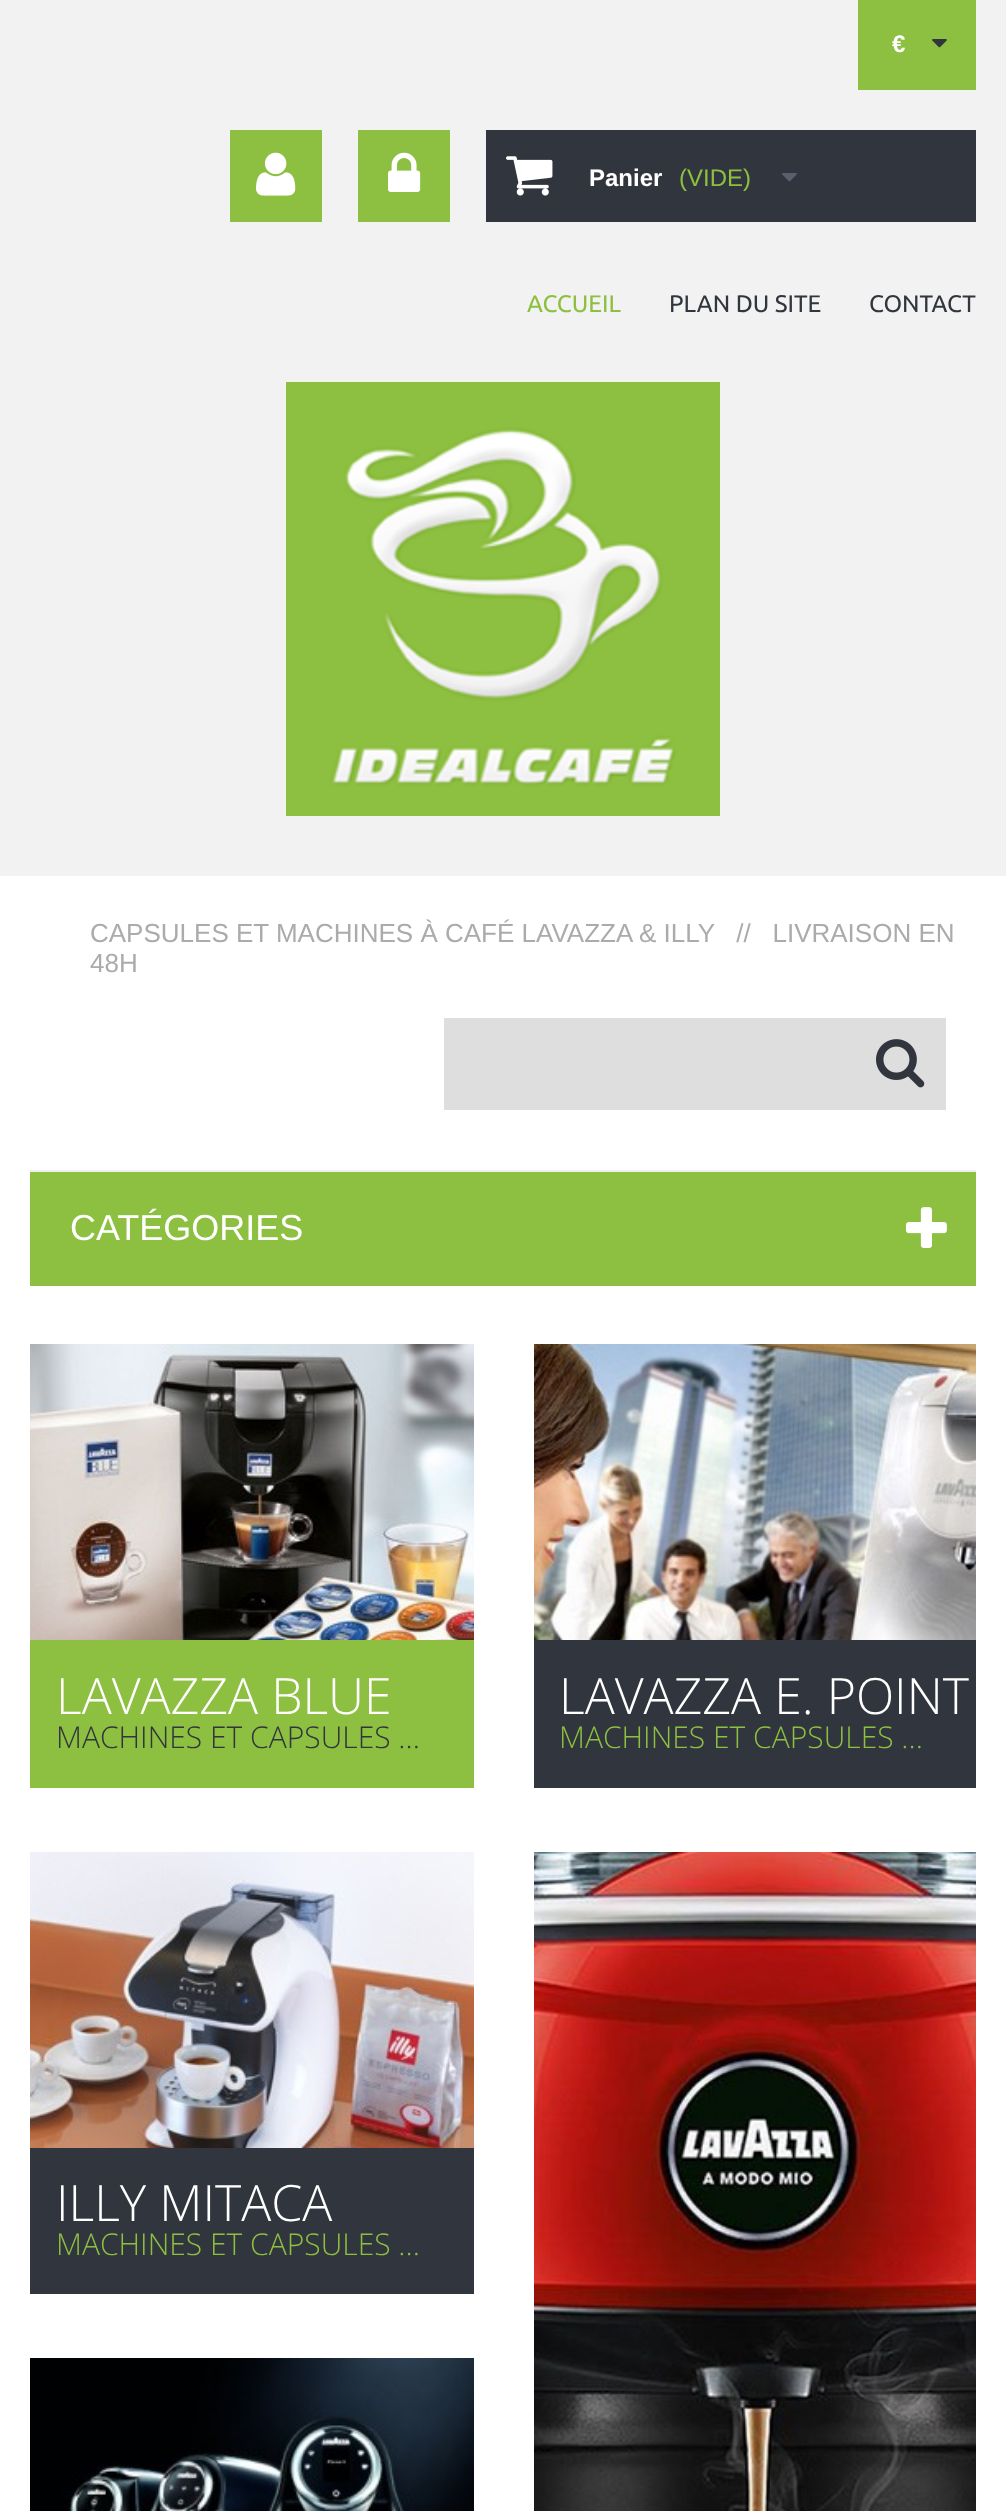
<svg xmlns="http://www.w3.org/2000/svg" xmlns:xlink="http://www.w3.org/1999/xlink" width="1006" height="2511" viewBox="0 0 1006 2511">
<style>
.cls-1{font:bold 24px Liberation Sans;fill:#ffffff}
.cls-2{font:24px Liberation Sans;fill:#8dbf41}
.cls-3{font:24px Ubuntu;fill:#8dbf41}
.cls-4{font:24px Ubuntu;fill:#31353d}
.cls-5{font:26px Liberation Sans;fill:#ababab}
.cls-6{font:36px Liberation Sans;fill:#ffffff}
.cls-7{font:300 50px Open Sans;fill:#ffffff}
.cls-8{font:300 30px Open Sans;fill:#31353d}
.cls-9{font:300 30px Open Sans;fill:#8dbf41}
</style>
<rect width="100%" height="100%" fill="#ffffff"/>
<rect fill="#f2f2f2" x="0" y="0" width="1006" height="876"/>
<rect fill="#8dbf41" x="858" y="0" width="118" height="90"/>
<image xlink:href="image0.png" x="932" y="39" width="15" height="9"/>
<rect fill="#8dbf41" x="230" y="130" width="92" height="92"/>
<image xlink:href="image1.png" x="256" y="152" width="40" height="44"/>
<rect fill="#8dbf41" x="358" y="130" width="92" height="92"/>
<image xlink:href="image2.png" x="388" y="152" width="33" height="40"/>
<rect fill="#31353d" x="486" y="130" width="490" height="92"/>
<image xlink:href="image3.png" x="506" y="156" width="47" height="40"/>
<image xlink:href="image4.png" x="782" y="173" width="15" height="9"/>
<image xlink:href="image5.png" x="286" y="382" width="434" height="434"/>
<rect fill="#eeeeee" x="30" y="1170" width="946" height="2"/>
<rect fill="#dedede" x="444" y="1018" width="502" height="92"/>
<image xlink:href="image6.png" x="876" y="1039" width="49" height="49"/>
<rect fill="#8dbf41" x="30" y="1172" width="946" height="114"/>
<image xlink:href="image7.png" x="906" y="1207" width="41" height="41"/>
<image xlink:href="image8.png" x="30" y="1344" width="444" height="296"/>
<rect fill="#8dbf41" x="30" y="1640" width="444" height="148"/>
<image xlink:href="image9.png" x="534" y="1344" width="442" height="296"/>
<rect fill="#31353d" x="534" y="1640" width="442" height="148"/>
<image xlink:href="image10.png" x="30" y="1852" width="444" height="296"/>
<rect fill="#31353d" x="30" y="2148" width="444" height="146"/>
<image xlink:href="image11.png" x="534" y="1852" width="442" height="659"/>
<image xlink:href="image12.png" x="30" y="2358" width="444" height="153"/>
<text class="cls-1" x="892" y="52">€</text>
<text class="cls-1" x="589" y="186">Panier</text>
<text class="cls-2" x="679" y="186">(VIDE)</text>
<text class="cls-3" x="527" y="312">ACCUEIL</text>
<text class="cls-4" x="669" y="312">PLAN DU SITE</text>
<text class="cls-4" x="869" y="312">CONTACT</text>
<text class="cls-5" xml:space="preserve"><tspan x="90" y="942">CAPSULES ET MACHINES À CAFÉ LAVAZZA &amp; ILLY   //   LIVRAISON EN</tspan><tspan x="90" y="972">48H</tspan></text>
<text class="cls-6" x="70" y="1240">CATÉGORIES</text>
<text class="cls-7" x="56" y="1714">LAVAZZA BLUE</text>
<text class="cls-8" x="56" y="1748">MACHINES ET CAPSULES ...</text>
<text class="cls-7" x="559" y="1714">LAVAZZA E. POINT</text>
<text class="cls-9" x="559" y="1748">MACHINES ET CAPSULES ...</text>
<text class="cls-7" x="56" y="2221">ILLY MITACA</text>
<text class="cls-9" x="56" y="2255">MACHINES ET CAPSULES ...</text>
</svg>
